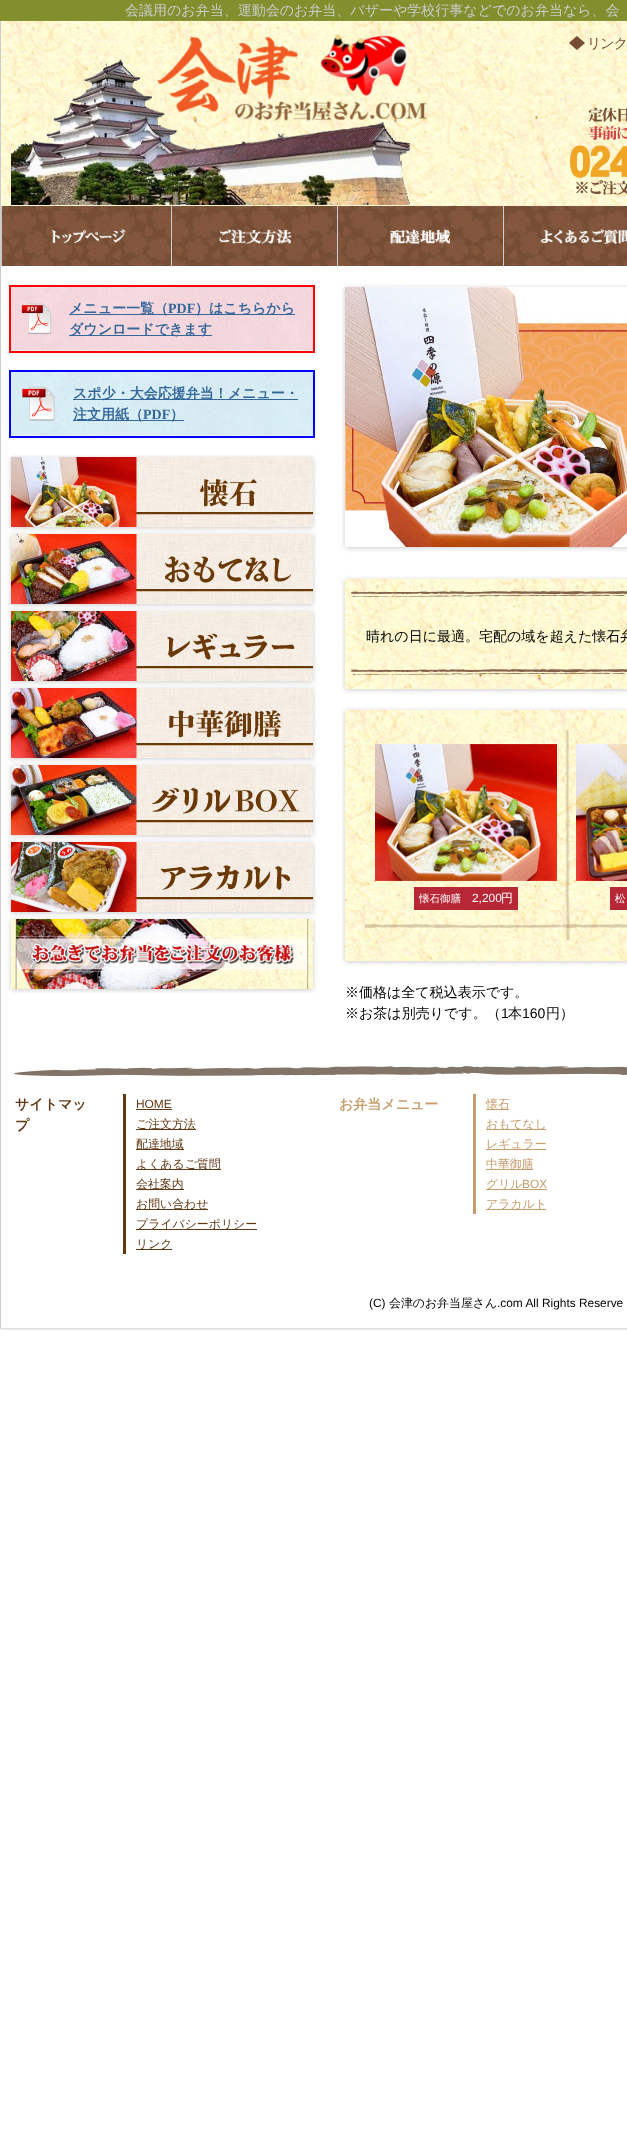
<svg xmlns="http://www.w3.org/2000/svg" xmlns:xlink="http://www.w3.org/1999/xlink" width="627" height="2142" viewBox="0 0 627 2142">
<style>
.cls-1{font:500 14px WenQuanYi Zen Hei;fill:#cccccc}
.cls-2{font:500 14px WenQuanYi Zen Hei;letter-spacing:-1px;fill:#764e35}
.cls-3{font:bold 14px WenQuanYi Zen Hei;fill:#336699}
.cls-4{font:bold 14px Liberation Serif;fill:#336699}
.cls-5{font:500 14px WenQuanYi Zen Hei;fill:#000000}
.cls-6{font:500 10.5px WenQuanYi Zen Hei;fill:#ffffff}
.cls-7{font:11.9px Liberation Sans;fill:#ffffff}
.cls-8{font:500 11.9px WenQuanYi Zen Hei;fill:#ffffff}
.cls-9{font:14px Liberation Sans;fill:#000000}
.cls-10{font:bold 14px WenQuanYi Zen Hei;fill:#603813}
.cls-11{font:11.9px Liberation Sans;fill:#603813}
.cls-12{font:500 11.9px WenQuanYi Zen Hei;fill:#603813}
.cls-13{font:bold 14px WenQuanYi Zen Hei;fill:#c69c6d}
.cls-14{font:500 11.9px WenQuanYi Zen Hei;fill:#c69c6d}
.cls-15{font:11.9px Liberation Sans;fill:#c69c6d}
.cls-16{font:11.9px Liberation Sans;fill:#000000}
.cls-17{font:500 11.9px WenQuanYi Zen Hei;fill:#000000}
</style>
<defs>
<clipPath id="clip1"><path d="M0 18H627V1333H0ZM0 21H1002V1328H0Z" clip-rule="evenodd"/></clipPath>
</defs>
<rect width="100%" height="100%" fill="#ffffff"/>
<rect fill="#818f2c" x="0" y="0" width="627" height="21"/>
<image xlink:href="image30.png" x="2" y="206" width="625" height="60"/>
<g clip-path="url(#clip1)">
<rect fill="#cccccc" filter="blur(1px)" x="0" y="22" width="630" height="1307"/>
</g>
<rect fill="#cccccc" x="0" y="21" width="1" height="1307"/>
<image xlink:href="image0.png" x="1" y="21" width="626" height="185"/>
<image xlink:href="image1.png" x="11" y="34" width="416" height="171"/>
<image xlink:href="image2.png" x="569" y="36" width="16" height="14"/>
<image xlink:href="image3.png" x="569" y="107" width="58" height="88"/>
<image xlink:href="image4.png" x="51" y="229" width="75" height="15"/>
<rect fill="#cccccc" x="1" y="206" width="1" height="60"/>
<image xlink:href="image5.png" x="219" y="229" width="73" height="15"/>
<rect fill="#cccccc" x="171" y="206" width="1" height="60"/>
<image xlink:href="image6.png" x="389" y="229" width="62" height="15"/>
<rect fill="#cccccc" x="337" y="206" width="1" height="60"/>
<image xlink:href="image7.png" x="540" y="229" width="87" height="15"/>
<rect fill="#cccccc" x="503" y="206" width="1" height="60"/>
<image xlink:href="image8.png" x="11" y="287" width="302" height="63"/>
<image xlink:href="image9.png" x="21" y="303" width="31" height="31"/>
<rect fill="#eeeeee" x="11" y="350" width="303" height="1"/>
<rect fill="#336699" x="69" y="314" width="226" height="1"/>
<rect fill="#336699" x="69" y="335" width="143" height="1"/>
<rect fill="none" stroke="#ff0000" stroke-width="2" x="10" y="286" width="304" height="66"/>
<image xlink:href="image10.png" x="11" y="372" width="302" height="63"/>
<image xlink:href="image11.png" x="22" y="386" width="33" height="35"/>
<rect fill="#eeeeee" x="11" y="435" width="303" height="1"/>
<rect fill="#336699" x="73" y="399" width="225" height="1"/>
<rect fill="#336699" x="73" y="420" width="111" height="1"/>
<rect fill="none" stroke="#0000ff" stroke-width="2" x="10" y="371" width="304" height="66"/>
<rect fill="#cccccc" filter="blur(2.5px)" x="11" y="458" width="302" height="70"/>
<image xlink:href="image12.png" x="11" y="457" width="302" height="70"/>
<rect fill="#cccccc" filter="blur(2.5px)" x="11" y="535" width="302" height="70"/>
<image xlink:href="image13.png" x="11" y="534" width="302" height="70"/>
<rect fill="#cccccc" filter="blur(2.5px)" x="11" y="612" width="302" height="70"/>
<image xlink:href="image14.png" x="11" y="611" width="302" height="70"/>
<rect fill="#cccccc" filter="blur(2.5px)" x="11" y="689" width="302" height="70"/>
<image xlink:href="image15.png" x="11" y="688" width="302" height="70"/>
<rect fill="#cccccc" filter="blur(2.5px)" x="11" y="766" width="302" height="70"/>
<image xlink:href="image16.png" x="11" y="765" width="302" height="70"/>
<rect fill="#cccccc" filter="blur(2.5px)" x="11" y="843" width="302" height="70"/>
<image xlink:href="image17.png" x="11" y="842" width="302" height="70"/>
<rect fill="#cccccc" filter="blur(2.5px)" x="11" y="920" width="302" height="70"/>
<image xlink:href="image18.png" x="11" y="919" width="302" height="70"/>
<rect fill="#cccccc" filter="blur(2.5px)" x="345" y="288" width="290" height="260"/>
<image xlink:href="image19.png" x="345" y="287" width="282" height="260"/>
<rect fill="#cccccc" filter="blur(2.5px)" x="345" y="580" width="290" height="110"/>
<image xlink:href="image20.png" x="345" y="579" width="282" height="110"/>
<image xlink:href="image21.png" x="351" y="591" width="276" height="6"/>
<image xlink:href="image22.png" x="351" y="669" width="276" height="6"/>
<rect fill="#cccccc" filter="blur(2.5px)" x="345" y="711" width="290" height="251"/>
<image xlink:href="image23.png" x="345" y="710" width="282" height="251"/>
<image xlink:href="image24.png" x="565" y="730" width="5" height="210"/>
<image xlink:href="image25.png" x="365" y="924" width="201" height="4"/>
<image xlink:href="image26.png" x="375" y="744" width="182" height="137"/>
<rect fill="#b72736" x="414" y="887" width="104" height="23"/>
<image xlink:href="image27.png" x="566" y="924" width="61" height="4"/>
<image xlink:href="image28.png" x="576" y="744" width="51" height="137"/>
<rect fill="#b72736" x="610" y="887" width="17" height="23"/>
<image xlink:href="image29.png" x="14" y="1066" width="613" height="10"/>
<rect fill="#603813" x="123" y="1094" width="3" height="160"/>
<rect fill="#603813" x="136" y="1109" width="36" height="1"/>
<rect fill="#603813" x="136" y="1129" width="60" height="1"/>
<rect fill="#603813" x="136" y="1149" width="48" height="1"/>
<rect fill="#603813" x="136" y="1169" width="85" height="1"/>
<rect fill="#603813" x="136" y="1189" width="48" height="1"/>
<rect fill="#603813" x="136" y="1209" width="72" height="1"/>
<rect fill="#603813" x="136" y="1229" width="121" height="1"/>
<rect fill="#603813" x="136" y="1249" width="36" height="1"/>
<rect fill="#c69c6d" x="473" y="1094" width="3" height="120"/>
<rect fill="#c69c6d" x="486" y="1109" width="23" height="1"/>
<rect fill="#c69c6d" x="486" y="1129" width="60" height="1"/>
<rect fill="#c69c6d" x="486" y="1149" width="60" height="1"/>
<rect fill="#c69c6d" x="486" y="1169" width="47" height="1"/>
<rect fill="#c69c6d" x="486" y="1189" width="61" height="1"/>
<rect fill="#c69c6d" x="486" y="1209" width="60" height="1"/>
<text class="cls-1" x="125" y="15">会議用のお弁当、運動会のお弁当、バザーや学校行事などでのお弁当なら、会</text>
<text class="cls-2" x="587" y="48">リンク</text>
<text class="cls-3" x="69" y="313">メニュー一覧（</text>
<text class="cls-4" x="168" y="313">PDF</text>
<text class="cls-3" x="195" y="313">）はこちらから</text>
<text class="cls-3" x="69" y="334">ダウンロードできます</text>
<text class="cls-3"><tspan x="73" y="398">スポ少・大会応援弁当！メニュー・</tspan><tspan x="73" y="419">注文用紙（</tspan></text>
<text class="cls-4" x="143" y="419">PDF</text>
<text class="cls-3" x="170" y="419">）</text>
<text class="cls-5" x="366" y="641">晴れの日に最適。宅配の域を超えた懐石弁</text>
<text class="cls-6" x="419" y="902">懐石御膳</text>
<text class="cls-7" x="472" y="902">2,200</text>
<text class="cls-8" x="501" y="902">円</text>
<text class="cls-6" x="615" y="902">松</text>
<text class="cls-5"><tspan x="345" y="997">※価格は全て税込表示です。</tspan><tspan x="345" y="1018">※お茶は別売りです。（</tspan></text>
<text class="cls-9" x="501" y="1018">1</text>
<text class="cls-5" x="508" y="1018">本</text>
<text class="cls-9" x="522" y="1018">160</text>
<text class="cls-5" x="546" y="1018">円）</text>
<text class="cls-10"><tspan x="15" y="1109">サイトマッ</tspan><tspan x="15" y="1130">プ</tspan></text>
<text class="cls-11" x="136" y="1108">HOME</text>
<text class="cls-12"><tspan x="136" y="1128">ご注文方法</tspan><tspan x="136" y="1148">配達地域</tspan><tspan x="136" y="1168">よくあるご質問</tspan><tspan x="136" y="1188">会社案内</tspan><tspan x="136" y="1208">お問い合わせ</tspan><tspan x="136" y="1228">プライバシーポリシー</tspan><tspan x="136" y="1248">リンク</tspan></text>
<text class="cls-13" x="339" y="1109">お弁当メニュー</text>
<text class="cls-14"><tspan x="486" y="1108">懐石</tspan><tspan x="486" y="1128">おもてなし</tspan><tspan x="486" y="1148">レギュラー</tspan><tspan x="486" y="1168">中華御膳</tspan><tspan x="486" y="1188">グリル</tspan></text>
<text class="cls-15" x="522" y="1188">BOX</text>
<text class="cls-14" x="486" y="1208">アラカルト</text>
<text class="cls-16" x="369" y="1307">(C)</text>
<text class="cls-17" x="389" y="1307">会津のお弁当屋さん</text>
<text class="cls-16" x="497" y="1307">.com All Rights Reserve</text>
</svg>
